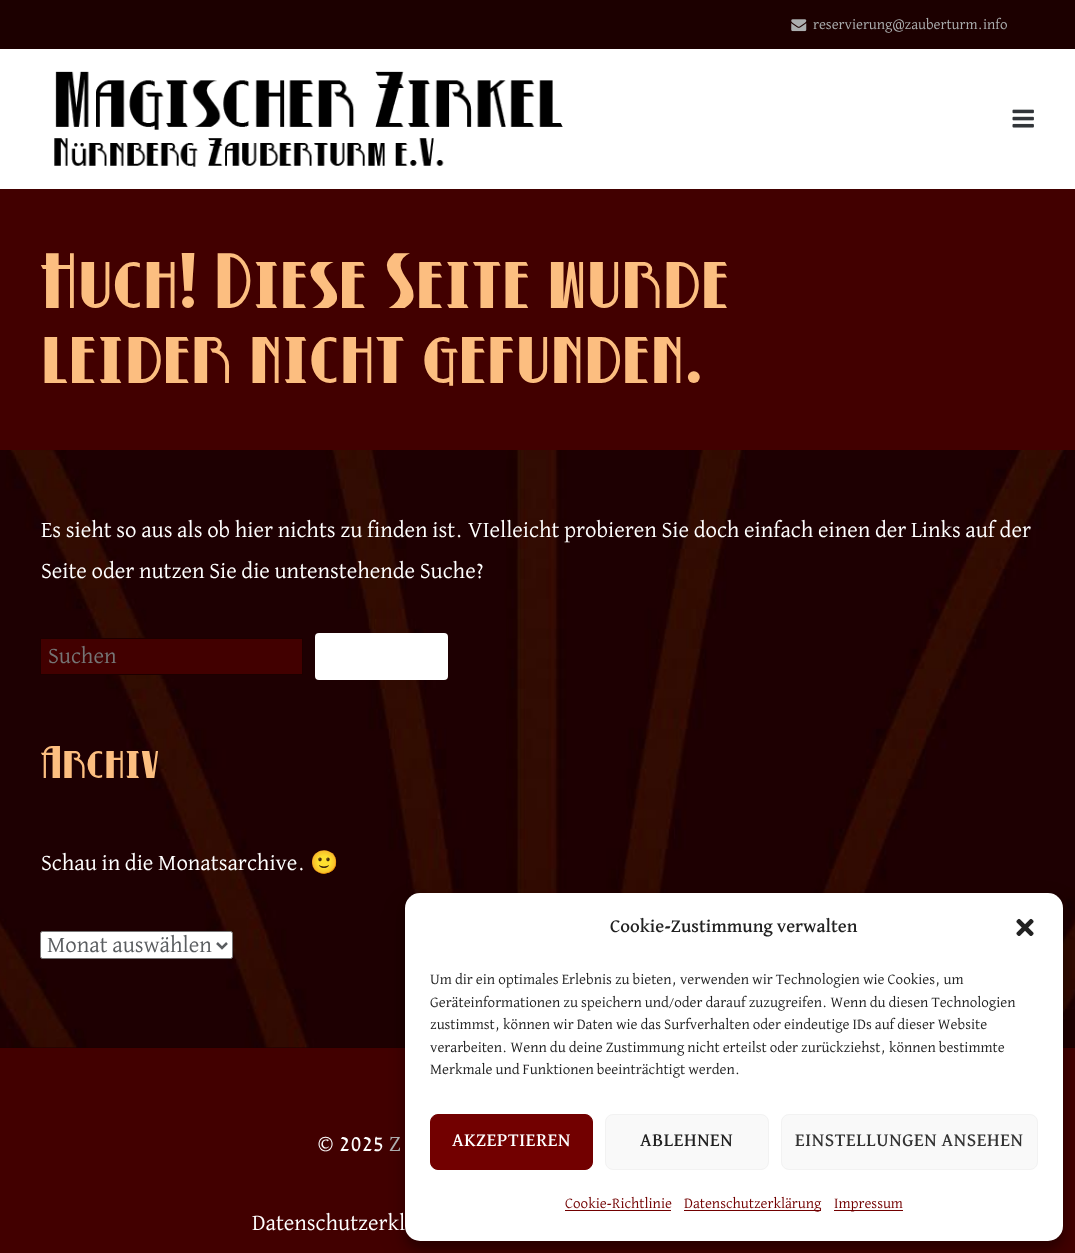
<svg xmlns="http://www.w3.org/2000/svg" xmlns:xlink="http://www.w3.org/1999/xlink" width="1075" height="1253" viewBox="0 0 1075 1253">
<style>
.cls-1{font:15px David Libre;fill:#acaeaf}
.cls-2{font:68.25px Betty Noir;fill:#fcbe80}
.cls-3{font:22.75px David Libre;fill:#ffffff}
.cls-4{font:22.75px David Libre;fill:#757575}
.cls-5{font:40px Betty Noir;fill:#fcbe80}
.cls-6{font:22.75px Noto Color Emoji;fill:#ffffff}
.cls-7{font:22.75px David Libre;fill:#5a5d60}
.cls-8{font:22.75px David Libre;fill:#acaeaf}
.cls-9{font:500 18.75px David Libre;fill:#222222}
.cls-10{font:15px David Libre;fill:#222222}
.cls-11{font:500 18.75px David Libre;letter-spacing:0.6px;fill:#ffffff}
.cls-12{font:500 18.75px David Libre;letter-spacing:0.6px;fill:#222222}
.cls-13{font:500 18.75px David Libre;letter-spacing:0.6px;fill:#333333}
.cls-14{font:15px David Libre;fill:#720000}
</style>
<rect width="100%" height="100%" fill="#1c0000"/>
<image xlink:href="image0.png" x="791" y="19" width="16" height="13"/>
<rect fill="#ffffff" x="0" y="49" width="1075" height="140"/>
<image xlink:href="image1.png" x="54" y="71" width="509" height="96"/>
<image xlink:href="image2.png" x="1012" y="109" width="22" height="19"/>
<image xlink:href="image3.png" x="0" y="450" width="1075" height="598"/>
<rect fill="#420000" x="0" y="189" width="1075" height="261"/>
<rect fill="#420000" stroke="#1c0000" x="40.5" y="638.5" width="262" height="36"/>
<rect fill="#ffffff" x="315" y="633" width="133" height="47" rx="4"/>
<rect fill="#ffffff" stroke="#767676" x="40.5" y="931.5" width="192" height="27" rx="2"/>
<path fill="none" stroke="#5a5d60" stroke-width="2.5" d="M217 943L222 948L227 943"/>
<rect fill="#420000" x="0" y="1048" width="1075" height="205"/>
<rect fill="#000000" fill-opacity="0.23" filter="blur(4px)" x="405" y="900" width="658" height="349" rx="15"/>
<rect fill="#000000" fill-opacity="0.19" filter="blur(12.5px)" x="405" y="905" width="658" height="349" rx="15"/>
<rect fill="#ffffff" x="405" y="893" width="658" height="348" rx="15"/>
<image xlink:href="image4.png" x="1016" y="918" width="18" height="18"/>
<rect fill="#720000" stroke="#720000" x="430.5" y="1114.5" width="162" height="55" rx="7.5"/>
<rect fill="#f9f9f9" stroke="#f2f2f2" x="605.5" y="1114.5" width="163" height="55" rx="7.5"/>
<rect fill="#f9f9f9" stroke="#f2f2f2" x="781.5" y="1114.5" width="256" height="55" rx="7.5"/>
<rect fill="#720000" x="565" y="1210" width="106" height="1"/>
<rect fill="#720000" x="684" y="1210" width="137" height="1"/>
<rect fill="#720000" x="834" y="1210" width="69" height="1"/>
<text class="cls-1" x="813" y="29">reservierung@zauberturm.info</text>
<text class="cls-2"><tspan x="41" y="308">Huch! Diese Seite wurde</tspan><tspan x="41" y="383">leider nicht gefunden.</tspan></text>
<text class="cls-3"><tspan x="41" y="537">Es sieht so aus als ob hier nichts zu finden ist. VIelleicht probieren Sie doch einfach einen der Links auf der</tspan><tspan x="41" y="578">Seite oder nutzen Sie die untenstehende Suche?</tspan></text>
<text class="cls-4" x="48" y="663">Suchen</text>
<text class="cls-5" x="41" y="778">Archiv</text>
<text class="cls-3" x="41" y="870">Schau in die Monatsarchive.</text>
<text class="cls-6" x="310" y="870">🙂</text>
<text class="cls-7" x="47" y="952">Monat auswählen</text>
<text class="cls-3" x="317" y="1151">© 2025</text>
<text class="cls-8" x="389" y="1151">Z</text>
<text class="cls-3" x="252" y="1230">Datenschutzerkl</text>
<text class="cls-9" x="610" y="932">Cookie-Zustimmung verwalten</text>
<text class="cls-10"><tspan x="430" y="984">Um dir ein optimales Erlebnis zu bieten, verwenden wir Technologien wie Cookies, um</tspan><tspan x="430" y="1007">Geräteinformationen zu speichern und/oder darauf zuzugreifen. Wenn du diesen Technologien</tspan><tspan x="430" y="1029">zustimmst, können wir Daten wie das Surfverhalten oder eindeutige IDs auf dieser Website</tspan><tspan x="430" y="1052">verarbeiten. Wenn du deine Zustimmung nicht erteilst oder zurückziehst, können bestimmte</tspan><tspan x="430" y="1074">Merkmale und Funktionen beeinträchtigt werden.</tspan></text>
<text class="cls-11" x="452" y="1146">AKZEPTIEREN</text>
<text class="cls-12" x="640" y="1146">ABLEHNEN</text>
<text class="cls-13" x="795" y="1146">EINSTELLUNGEN ANSEHEN</text>
<text class="cls-14" x="565" y="1208">Cookie-Richtlinie</text>
<text class="cls-14" x="684" y="1208">Datenschutzerklärung</text>
<text class="cls-14" x="834" y="1208">Impressum</text>
</svg>
